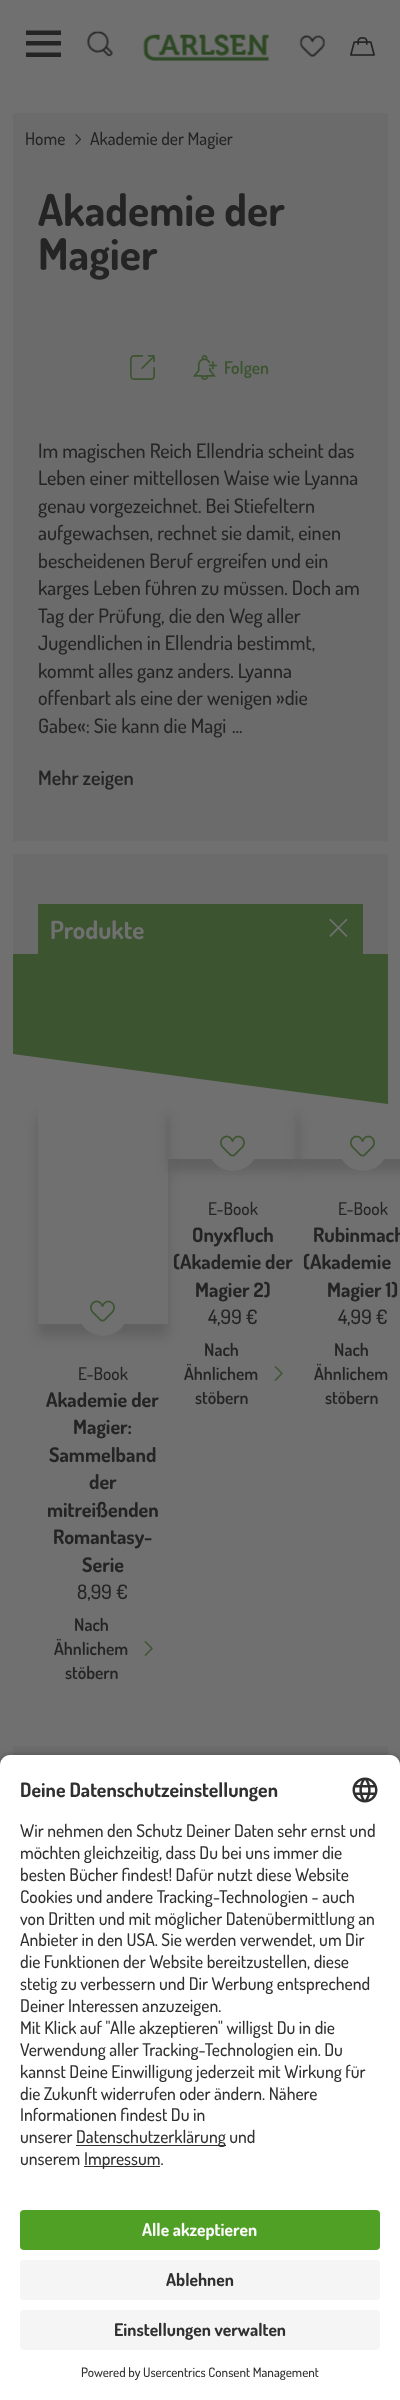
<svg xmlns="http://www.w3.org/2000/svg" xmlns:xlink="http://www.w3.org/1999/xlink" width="400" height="2400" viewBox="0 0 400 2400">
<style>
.cls-1{font:500 17.5px Dosis;fill:#242424}
.cls-2{font:bold 43.75px Dosis;fill:#242424}
.cls-3{font:600 17.5px Dosis;fill:#3c542f}
.cls-4{font:500 20px Dosis;fill:#242424}
.cls-5{font:600 20px Dosis;fill:#242424}
.cls-6{font:bold 25px Dosis;fill:#707070}
.cls-7{font:bold 20px Dosis;fill:#242424}
.cls-8{font:600 17.5px Dosis;fill:#242424}
.cls-9{font:bold 19.75px Dosis;fill:#303030}
.cls-10{font:500 17.5px Dosis;fill:#303030}
.cls-11{font:bold 17.5px Dosis;fill:#fafafa}
.cls-12{font:bold 17.5px Dosis;fill:#303030}
.cls-13{font:500 13.1px Dosis;fill:#303030}
</style>
<defs>
<clipPath id="clip1"><path d="M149 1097H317V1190H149ZM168 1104H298V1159H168Z" clip-rule="evenodd"/></clipPath>
<clipPath id="clip2"><path d="M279 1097H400V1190H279ZM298 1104H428V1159H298Z" clip-rule="evenodd"/></clipPath>
<clipPath id="clip3"><path d="M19 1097H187V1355H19ZM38 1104H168V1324H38Z" clip-rule="evenodd"/></clipPath>
</defs>
<rect width="100%" height="100%" fill="#707070"/>
<path fill="#242424" d="M61 30.5V35H26V30.5ZM61 41V45.5H26V41ZM61 52.5V57H26V52.5Z"/>
<image xlink:href="image0.png" x="87" y="30" width="26" height="27"/>
<image xlink:href="image1.png" x="143" y="33" width="126" height="28"/>
<image xlink:href="image2.png" x="299" y="34" width="27" height="23"/>
<image xlink:href="image3.png" x="350" y="37" width="25" height="19"/>
<rect fill="#6b6b6b" x="13" y="113" width="375" height="728"/>
<image xlink:href="image4.png" x="75" y="134" width="6" height="11"/>
<image xlink:href="image5.png" x="130" y="355" width="25" height="25"/>
<image xlink:href="image6.png" x="193" y="355" width="25" height="25"/>
<rect fill="#6b6b6b" x="13" y="854" width="375" height="901"/>
<rect fill="#3c542f" x="38" y="904" width="325" height="50"/>
<image xlink:href="image7.png" x="329" y="918" width="19" height="19"/>
<rect fill="#707070" x="13" y="1054" width="375" height="692"/>
<path fill="#3c542f" d="M13 1054V954H388V1104Z"/>
<g clip-path="url(#clip1)">
<rect fill="#242424" fill-opacity="0.2" filter="blur(6px)" x="168" y="1116" width="130" height="55"/>
</g>
<circle fill="#707070" cx="233" cy="1146" r="25"/>
<image xlink:href="image8.png" x="220" y="1135" width="25" height="22"/>
<image xlink:href="image9.png" x="274" y="1366" width="9" height="15"/>
<g clip-path="url(#clip2)">
<rect fill="#242424" fill-opacity="0.2" filter="blur(6px)" x="298" y="1116" width="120" height="55"/>
</g>
<circle fill="#707070" cx="363" cy="1146" r="25"/>
<image xlink:href="image8.png" x="350" y="1135" width="25" height="22"/>
<g clip-path="url(#clip3)">
<rect fill="#242424" fill-opacity="0.2" filter="blur(6px)" x="38" y="1116" width="130" height="220"/>
</g>
<circle fill="#707070" cx="103" cy="1311" r="25"/>
<image xlink:href="image8.png" x="90" y="1300" width="25" height="22"/>
<image xlink:href="image9.png" x="144" y="1641" width="9" height="15"/>
<rect fill="#000000" fill-opacity="0.8" filter="blur(4.5px)" x="0" y="1759" width="400" height="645" rx="10"/>
<path fill="#ffffff" d="M10 1755H390C395.5 1755 400 1759.5 400 1765V2195H0V1765C0 1759.5 4.5 1755 10 1755Z"/>
<image xlink:href="image10.png" x="352" y="1777" width="26" height="26"/>
<rect fill="#303030" x="76" y="2145" width="150" height="1"/>
<rect fill="#303030" x="84" y="2166" width="76" height="1"/>
<rect fill="#ffffff" x="0" y="2195" width="400" height="205"/>
<rect fill="#51a026" x="20" y="2210" width="360" height="40" rx="4"/>
<rect fill="#f5f5f5" x="20" y="2260" width="360" height="40" rx="4"/>
<rect fill="#f5f5f5" x="20" y="2310" width="360" height="40" rx="4"/>
<text class="cls-1" x="25" y="145">Home</text>
<text class="cls-1" x="90" y="145">Akademie der Magier</text>
<text class="cls-2"><tspan x="38" y="226">Akademie der</tspan><tspan x="38" y="270">Magier</tspan></text>
<text class="cls-3" x="224" y="374">Folgen</text>
<text class="cls-4"><tspan x="38" y="458">Im magischen Reich Ellendria scheint das</tspan><tspan x="38" y="485">Leben einer mittellosen Waise wie Lyanna</tspan><tspan x="38" y="513">genau vorgezeichnet. Bei Stiefeltern</tspan><tspan x="38" y="540">aufgewachsen, rechnet sie damit, einen</tspan><tspan x="38" y="568">bescheidenen Beruf ergreifen und ein</tspan><tspan x="38" y="595">karges Leben führen zu müssen. Doch am</tspan><tspan x="38" y="623">Tag der Prüfung, die den Weg aller</tspan><tspan x="38" y="650">Jugendlichen in Ellendria bestimmt,</tspan><tspan x="38" y="678">kommt alles ganz anders. Lyanna</tspan><tspan x="38" y="705">offenbart als eine der wenigen »die</tspan><tspan x="38" y="733">Gabe«: Sie kann die Magi</tspan></text>
<text class="cls-4" x="232" y="733">...</text>
<text class="cls-5" x="38" y="785">Mehr zeigen</text>
<text class="cls-6" x="50" y="939">Produkte</text>
<text class="cls-1" x="208" y="1215">E-Book</text>
<text class="cls-7" x="192" y="1242">Onyxfluch</text>
<text class="cls-7" x="173" y="1269">(Akademie der</text>
<text class="cls-7" x="195" y="1297">Magier 2)</text>
<text class="cls-4" x="208" y="1324">4,99 €</text>
<text class="cls-8" x="204" y="1356">Nach</text>
<text class="cls-8" x="184" y="1380">Ähnlichem</text>
<text class="cls-8" x="195" y="1404">stöbern</text>
<text class="cls-1" x="338" y="1215">E-Book</text>
<text class="cls-7" x="313" y="1242">Rubinmach</text>
<text class="cls-7" x="303" y="1269">(Akademie</text>
<text class="cls-7" x="327" y="1297">Magier 1)</text>
<text class="cls-4" x="338" y="1324">4,99 €</text>
<text class="cls-8" x="334" y="1356">Nach</text>
<text class="cls-8" x="314" y="1380">Ähnlichem</text>
<text class="cls-8" x="325" y="1404">stöbern</text>
<text class="cls-1" x="78" y="1380">E-Book</text>
<text class="cls-7" x="46" y="1407">Akademie der</text>
<text class="cls-7" x="73" y="1434">Magier:</text>
<text class="cls-7" x="49" y="1462">Sammelband</text>
<text class="cls-7" x="89" y="1489">der</text>
<text class="cls-7" x="47" y="1517">mitreißenden</text>
<text class="cls-7" x="53" y="1544">Romantasy-</text>
<text class="cls-7" x="82" y="1572">Serie</text>
<text class="cls-4" x="77" y="1599">8,99 €</text>
<text class="cls-8" x="74" y="1631">Nach</text>
<text class="cls-8" x="54" y="1655">Ähnlichem</text>
<text class="cls-8" x="65" y="1679">stöbern</text>
<text class="cls-9" x="20" y="1797">Deine Datenschutzeinstellungen</text>
<text class="cls-10"><tspan x="20" y="1837">Wir nehmen den Schutz Deiner Daten sehr ernst und</tspan><tspan x="20" y="1859">möchten gleichzeitig, dass Du bei uns immer die</tspan><tspan x="20" y="1881">besten Bücher findest! Dafür nutzt diese Website</tspan><tspan x="20" y="1903">Cookies und andere Tracking-Technologien - auch</tspan><tspan x="20" y="1925">von Dritten und mit möglicher Datenübermittlung an</tspan><tspan x="20" y="1946">Anbieter in den USA. Sie werden verwendet, um Dir</tspan><tspan x="20" y="1968">die Funktionen der Website bereitzustellen, diese</tspan><tspan x="20" y="1990">stetig zu verbessern und Dir Werbung entsprechend</tspan><tspan x="20" y="2012">Deiner Interessen anzuzeigen.</tspan><tspan x="20" y="2034">Mit Klick auf "</tspan></text>
<text class="cls-10" x="110" y="2034">Alle akzeptieren" willigst Du in die</text>
<text class="cls-10"><tspan x="20" y="2056">Verwendung aller Tracking-Technologien ein. Du</tspan><tspan x="20" y="2078">kannst Deine Einwilligung jederzeit mit Wirkung für</tspan><tspan x="20" y="2100">die Zukunft widerrufen oder ändern. Nähere</tspan><tspan x="20" y="2121">Informationen findest Du in</tspan><tspan x="20" y="2143">unserer</tspan></text>
<text class="cls-10" x="76" y="2143">Datenschutzerklärung und</text>
<text class="cls-10" x="20" y="2165">unserem</text>
<text class="cls-10" x="84" y="2165">Impressum.</text>
<text class="cls-11" x="142" y="2236">Alle akzeptieren</text>
<text class="cls-12" x="166" y="2286">Ablehnen</text>
<text class="cls-12" x="114" y="2336">Einstellungen verwalten</text>
<text class="cls-13" x="81" y="2377">Powered by Usercentrics Consent Management</text>
</svg>
